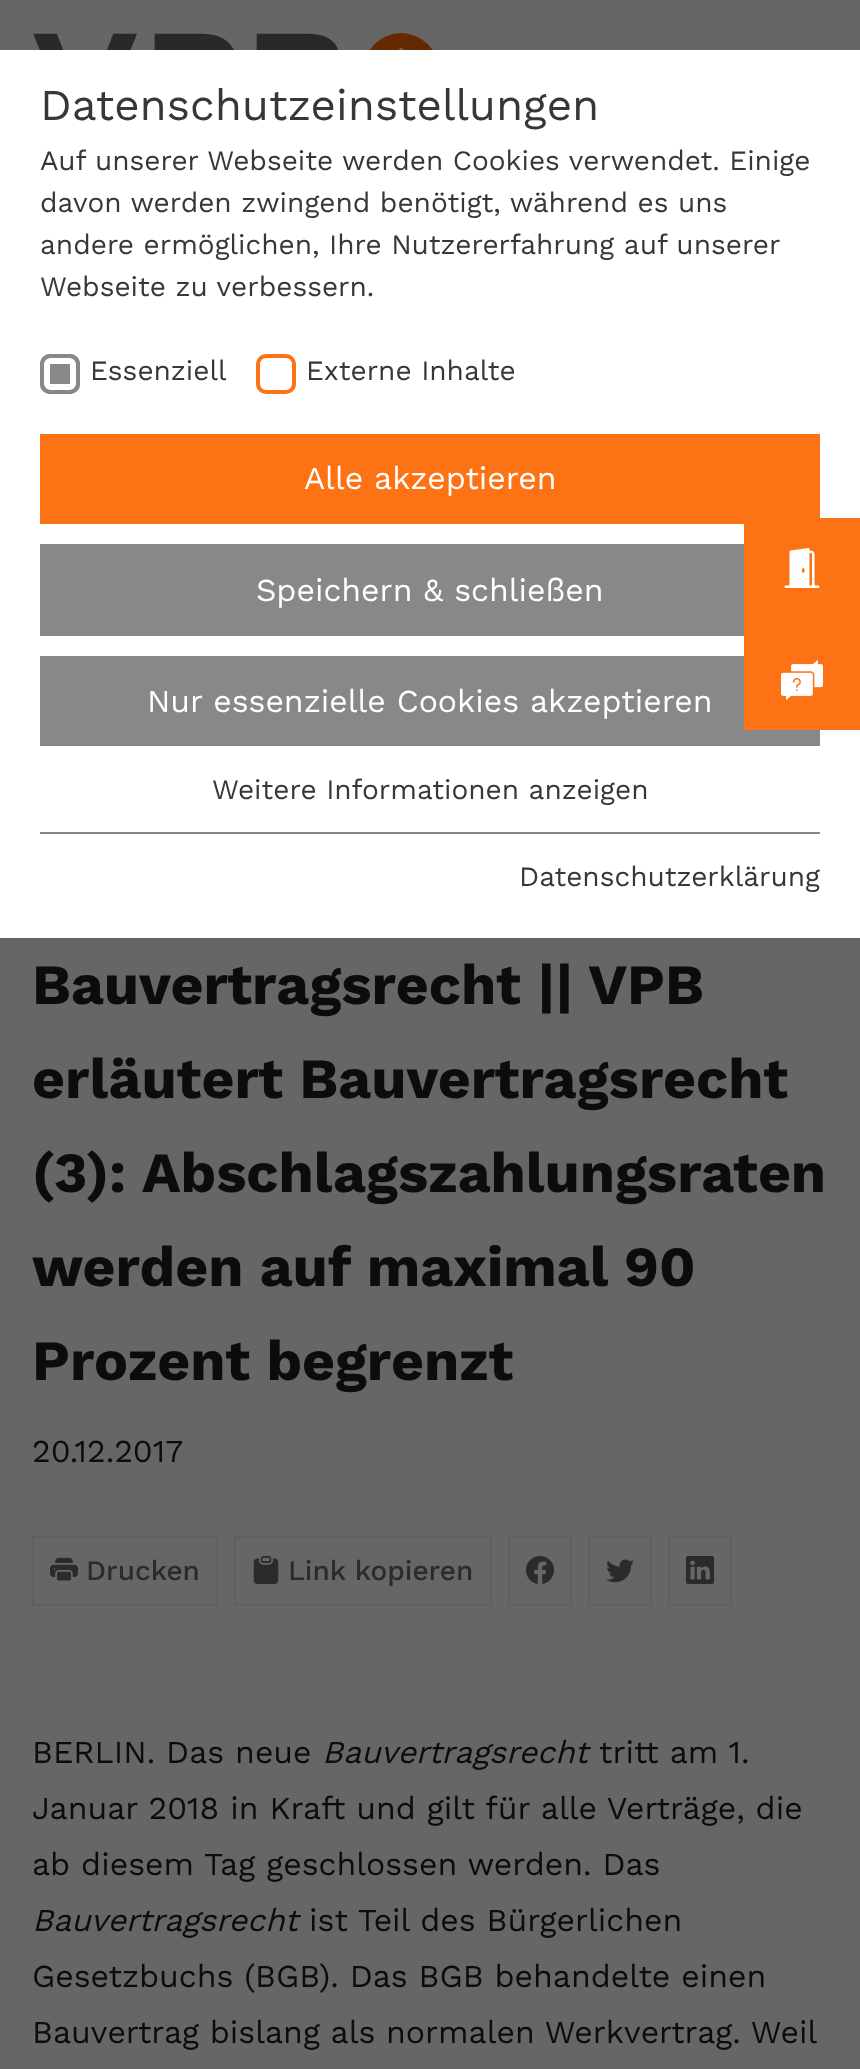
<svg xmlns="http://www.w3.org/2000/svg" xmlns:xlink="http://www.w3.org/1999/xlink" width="860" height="2069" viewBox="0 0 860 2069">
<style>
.cls-1{font:44px Work Sans;fill:#373737}
.cls-2{font:28px Work Sans;fill:#373737}
.cls-3{font:32px Work Sans;fill:#ffffff}
.cls-4{font:bold 56.9px Work Sans;fill:#0c0c0e}
.cls-5{font:32px Work Sans;fill:#0c0c0e}
.cls-6{font:500 28px Work Sans;fill:#2b2b2b}
.cls-7{font:italic 32px Work Sans;fill:#0c0c0e}
</style>
<rect width="100%" height="100%" fill="#666666"/>
<rect fill="#ffffff" x="0" y="50" width="860" height="888"/>
<rect fill="#888888" x="40" y="354" width="40" height="40" rx="10"/>
<rect fill="none" stroke="#ffffff" stroke-width="6" x="47" y="361" width="26" height="26" rx="3"/>
<rect fill="none" stroke="#888888" stroke-width="4" x="42" y="356" width="36" height="36" rx="8"/>
<rect fill="none" stroke="#fc7215" stroke-width="4" x="258" y="356" width="36" height="36" rx="8"/>
<rect fill="#fc7215" x="40" y="434" width="780" height="90"/>
<rect fill="#888888" x="40" y="544" width="704" height="92"/>
<rect fill="#888888" x="40" y="656" width="780" height="90"/>
<rect fill="#888888" x="40" y="832" width="780" height="2"/>
<image xlink:href="image0.png" x="33" y="33" width="400" height="17"/>
<rect fill="none" stroke="#5f6061" stroke-width="2" x="33" y="1537" width="184" height="68"/>
<image xlink:href="image1.png" x="50" y="1557" width="28" height="24"/>
<rect fill="none" stroke="#5f6061" stroke-width="2" x="235" y="1537" width="256" height="68"/>
<image xlink:href="image2.png" x="253" y="1556" width="26" height="28"/>
<rect fill="none" stroke="#5f6061" stroke-width="2" x="509" y="1537" width="62" height="68"/>
<image xlink:href="image3.png" x="526" y="1556" width="28" height="28"/>
<rect fill="none" stroke="#5f6061" stroke-width="2" x="589" y="1537" width="62" height="68"/>
<image xlink:href="image4.png" x="606" y="1559" width="28" height="24"/>
<rect fill="none" stroke="#5f6061" stroke-width="2" x="669" y="1537" width="62" height="68"/>
<image xlink:href="image5.png" x="686" y="1556" width="28" height="28"/>
<rect fill="#fc7215" x="744" y="518" width="116" height="212"/>
<image xlink:href="image6.png" x="784" y="548" width="36" height="40"/>
<image xlink:href="image7.png" x="781" y="659" width="42" height="42"/>
<text class="cls-1" x="40" y="120">Datenschutzeinstellungen</text>
<text class="cls-2"><tspan x="40" y="170">Auf unserer Webseite werden Cookies verwendet. Einige</tspan><tspan x="40" y="212">davon werden zwingend benötigt, während es uns</tspan><tspan x="40" y="254">andere ermöglichen, Ihre Nutzererfahrung auf unserer</tspan><tspan x="40" y="296">Webseite zu verbessern.</tspan></text>
<text class="cls-2" x="90" y="380">Essenziell</text>
<text class="cls-2" x="306" y="380">Externe Inhalte</text>
<text class="cls-3" x="304" y="489">Alle akzeptieren</text>
<text class="cls-3" x="256" y="601">Speichern &amp; schließen</text>
<text class="cls-3" x="147" y="712">Nur essenzielle Cookies akzeptieren</text>
<text class="cls-2" x="212" y="799">Weitere Informationen anzeigen</text>
<text class="cls-2" x="519" y="886">Datenschutzerklärung</text>
<text class="cls-4"><tspan x="32" y="1004">Bauvertragsrecht || VPB</tspan><tspan x="32" y="1098">erläutert Bauvertragsrecht</tspan><tspan x="32" y="1192">(3): Abschlagszahlungsraten</tspan><tspan x="32" y="1286">werden auf maximal 90</tspan><tspan x="32" y="1380">Prozent begrenzt</tspan></text>
<text class="cls-5" x="32" y="1462">20.12.2017</text>
<text class="cls-6" x="86" y="1580">Drucken</text>
<text class="cls-6" x="288" y="1580">Link kopieren</text>
<text class="cls-5" x="32" y="1763">BERLIN. Das neue</text>
<text class="cls-7" x="322" y="1763">Bauvertragsrecht</text>
<text class="cls-5" x="599" y="1763">tritt am 1.</text>
<text class="cls-5"><tspan x="32" y="1819">Januar 2018 in Kraft und gilt für alle Verträge, die</tspan><tspan x="32" y="1875">ab diesem Tag geschlossen werden. Das</tspan></text>
<text class="cls-7" x="32" y="1931">Bauvertragsrecht</text>
<text class="cls-5" x="309" y="1931">ist Teil des Bürgerlichen</text>
<text class="cls-5"><tspan x="32" y="1987">Gesetzbuchs (BGB). Das BGB behandelte einen</tspan><tspan x="32" y="2043" word-spacing="-0.25">Bauvertrag bislang als normalen Werkvertrag. Weil</tspan></text>
</svg>
